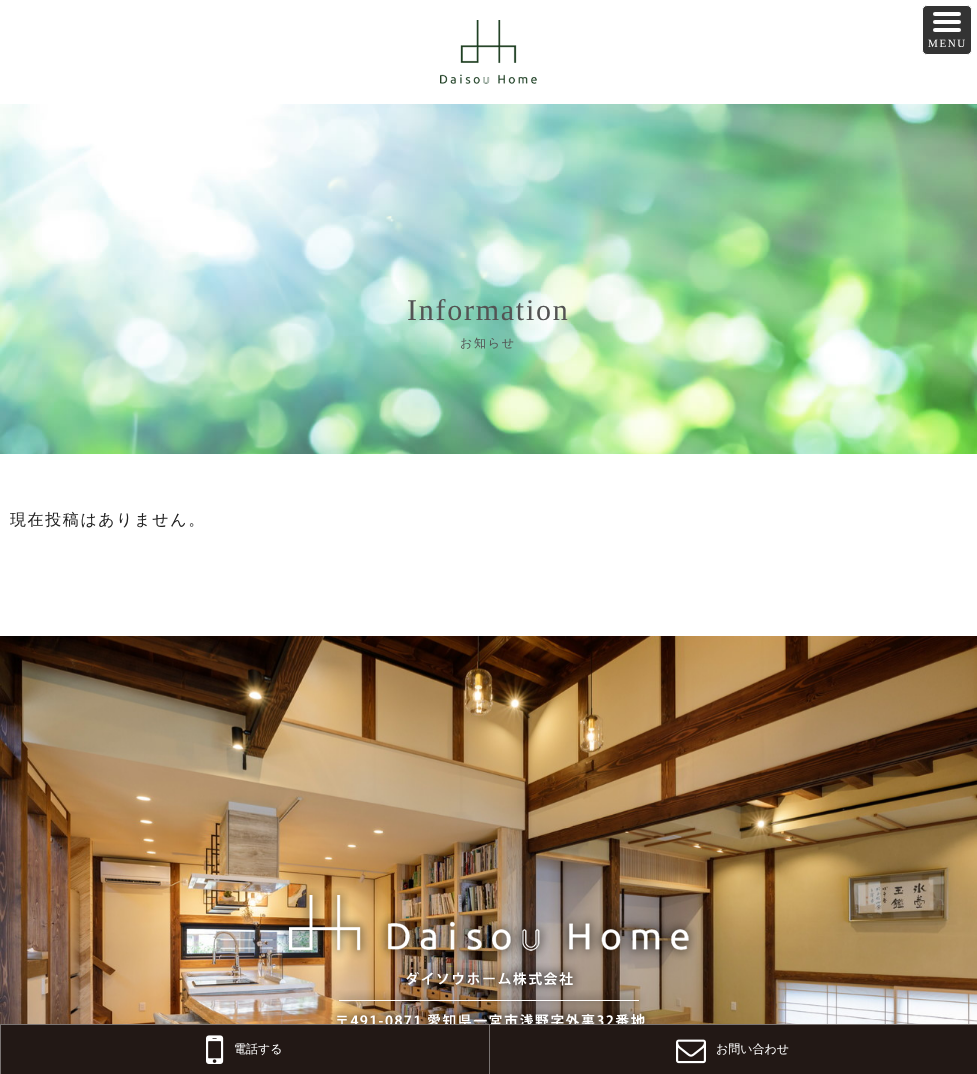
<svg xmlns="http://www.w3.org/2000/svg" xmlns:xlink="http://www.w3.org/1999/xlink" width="977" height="1074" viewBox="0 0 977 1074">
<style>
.cls-1{font:11px Liberation Serif;letter-spacing:1.6px;fill:#ffffff}
.cls-2{font:30px Liberation Serif;letter-spacing:1.75px;fill:#535353}
.cls-3{font:500 12px WenQuanYi Zen Hei;letter-spacing:1.75px;fill:#535353}
.cls-4{font:500 16px WenQuanYi Zen Hei;letter-spacing:1.6px;fill:#202020}
.cls-5{font:500 12px WenQuanYi Zen Hei;fill:#ffffff}
</style>
<defs>
<clipPath id="clip1"><rect x="0" y="1024" width="489" height="50"/></clipPath>
<clipPath id="clip2"><rect x="489" y="1024" width="488" height="50"/></clipPath>
</defs>
<rect width="100%" height="100%" fill="#ffffff"/>
<rect fill="#333333" stroke="#ffffff" x="922.5" y="5.5" width="49" height="49" rx="4.5"/>
<rect fill="#ffffff" x="933" y="12" width="28" height="4" rx="2"/>
<rect fill="#ffffff" x="933" y="20" width="28" height="4" rx="2"/>
<rect fill="#ffffff" x="933" y="28" width="28" height="4" rx="2"/>
<image xlink:href="image0.png" x="440" y="20" width="97" height="64"/>
<image xlink:href="image1.png" x="0" y="104" width="977" height="350"/>
<image xlink:href="image2.png" x="0" y="636" width="977" height="388"/>
<image xlink:href="image3.png" x="280" y="888" width="417" height="136"/>
<rect fill="#221815" x="1" y="1025" width="976" height="49"/>
<g clip-path="url(#clip1)">
<path fill="#7a7473" fill-rule="evenodd" d="M-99 925H588V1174H-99ZM1 1025H490V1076H1Z"/>
</g>
<image xlink:href="image4.png" x="206" y="1035" width="18" height="29"/>
<g clip-path="url(#clip2)">
<path fill="#7a7473" fill-rule="evenodd" d="M390 925H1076V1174H390ZM490 1025H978V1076H490Z"/>
</g>
<image xlink:href="image5.png" x="676" y="1039" width="30" height="25"/>
<text class="cls-1" x="928" y="47">MENU</text>
<text class="cls-2" x="407" y="320">Information</text>
<text class="cls-3" x="460" y="347">お知らせ</text>
<text class="cls-4" x="10" y="525">現在投稿はありません。</text>
<text class="cls-5" x="234" y="1053">電話する</text>
<text class="cls-5" x="716" y="1053">お問い合わせ</text>
</svg>
